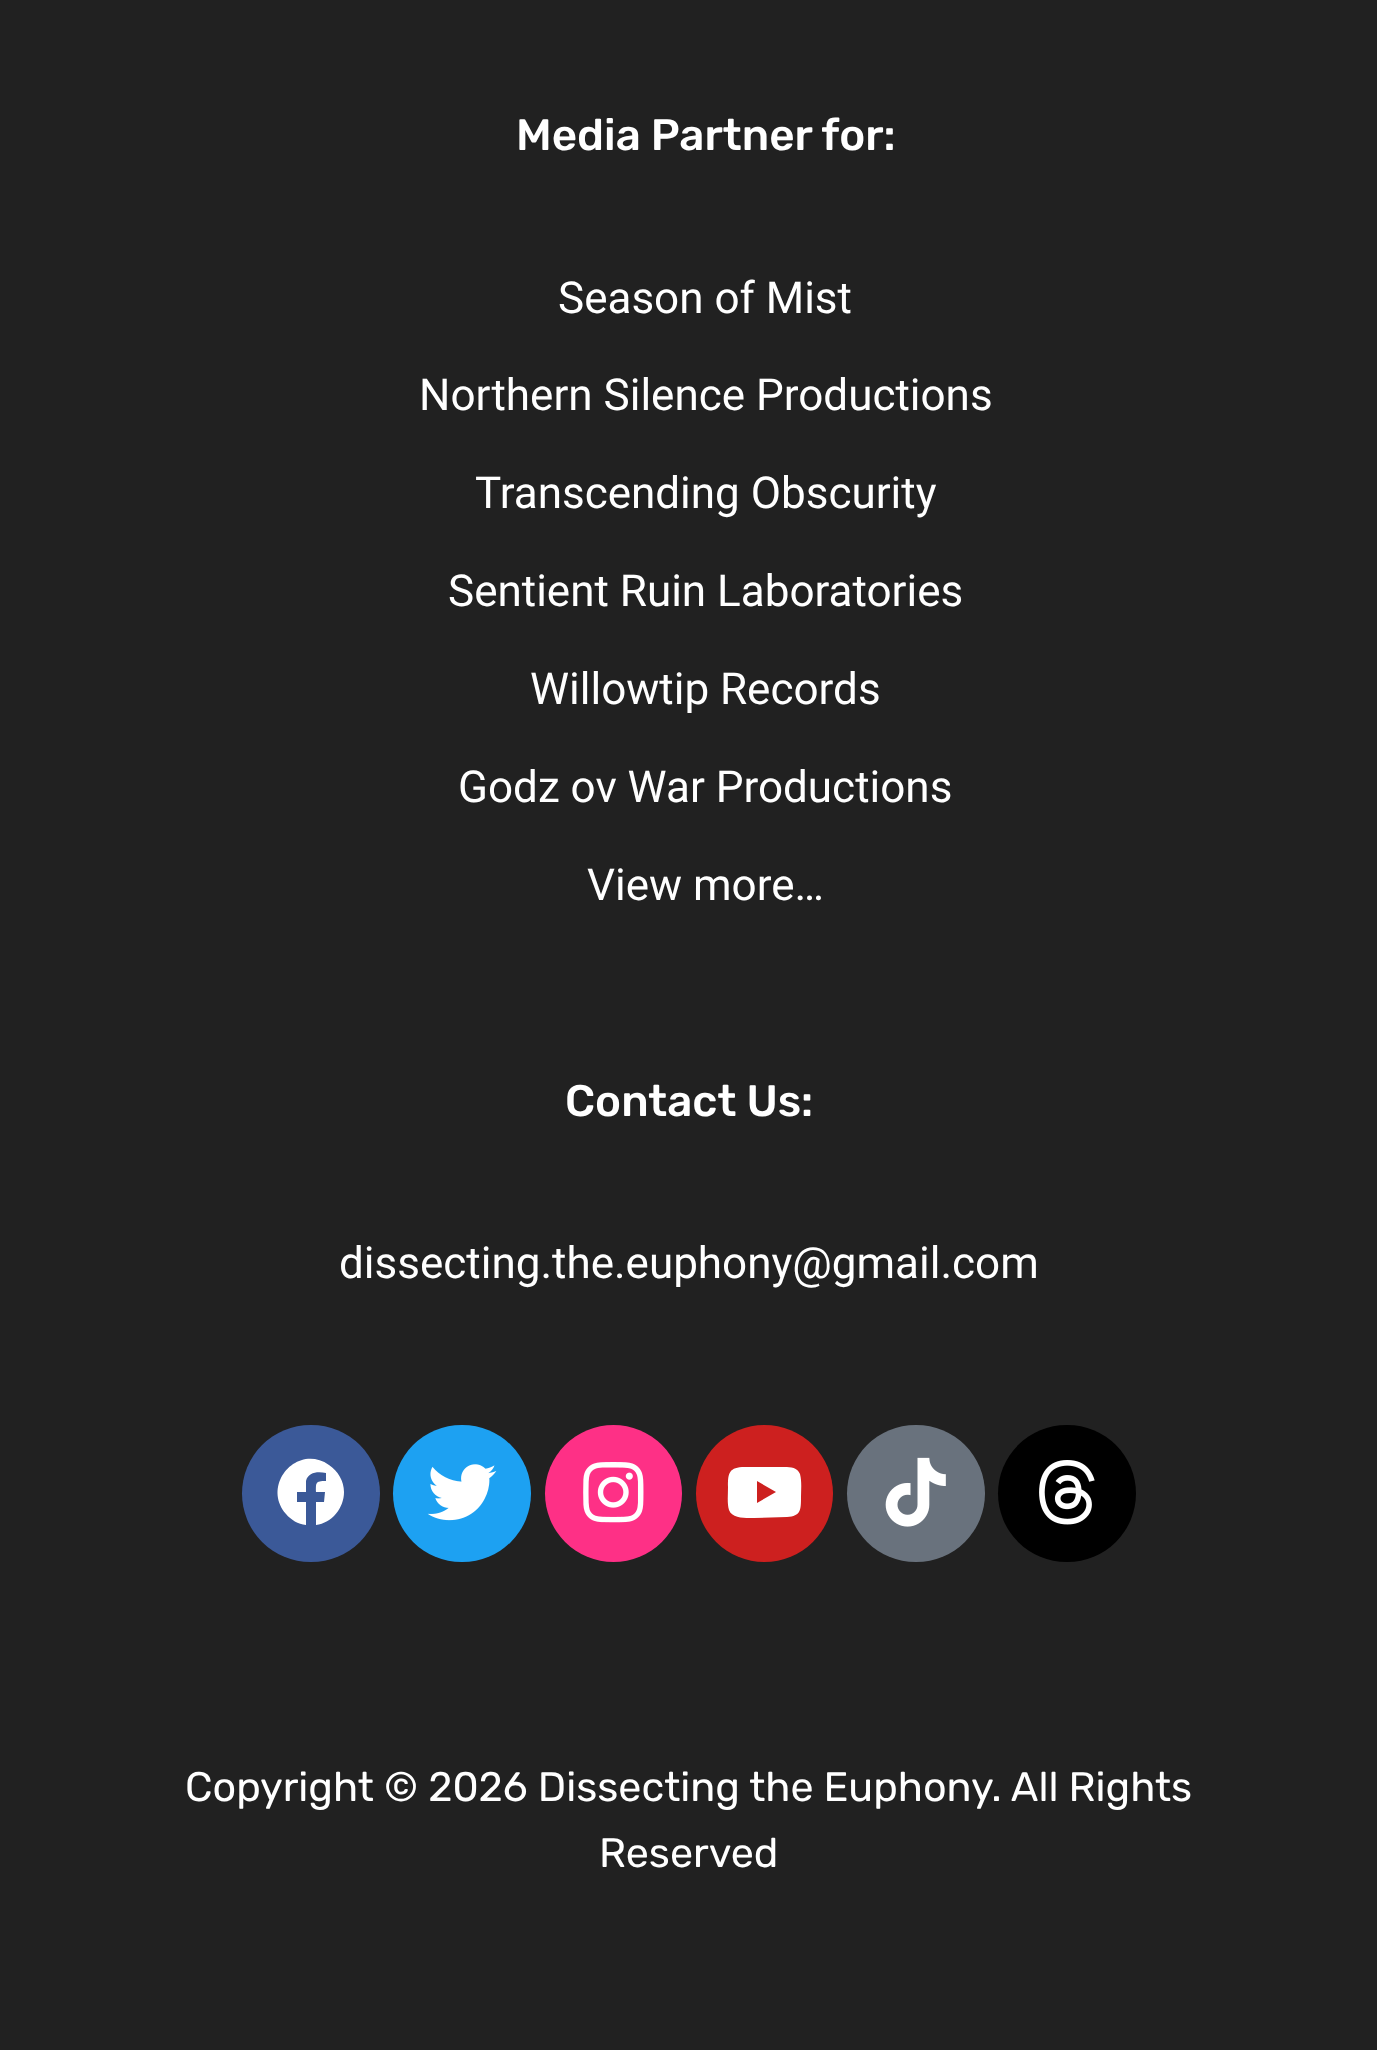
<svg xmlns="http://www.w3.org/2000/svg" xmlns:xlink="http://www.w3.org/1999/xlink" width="1377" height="2050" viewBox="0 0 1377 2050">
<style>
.cls-1{font:500 44px Rubik;fill:#ffffff}
.cls-2{font:44px Roboto;fill:#ffffff}
.cls-3{font:41.25px Rubik;fill:#ffffff}
</style>
<rect width="100%" height="100%" fill="#212121"/>
<rect fill="#3b5998" x="242" y="1425" width="138" height="137" rx="68.5"/>
<path fill="#ffffff" d="M344 1492C344 1508 332 1523 316 1525V1502H324L325 1492H316C316 1483 315 1481 326 1481V1473C318 1471 308 1472 306 1481V1492H297V1502H306V1525C298 1524 291 1520 286 1514C261 1485 297 1443 329 1465C338 1471 344 1481 344 1492Z"/>
<rect fill="#1da1f2" x="393" y="1425" width="138" height="137" rx="68.5"/>
<image xlink:href="image0.png" x="427" y="1464" width="70" height="57"/>
<circle fill="#fe3086" cx="613.5" cy="1493.5" r="68.5"/>
<image xlink:href="image1.png" x="583" y="1462" width="61" height="61"/>
<circle fill="#cd201f" cx="764.5" cy="1493.5" r="68.5"/>
<path fill="#ffffff" d="M800 1474C802 1482 801 1490 801 1497C801 1510 801 1516 787 1517L754 1518C747 1518 732 1519 729 1510C727 1503 728 1495 728 1487C728 1475 728 1468 742 1467H758H780C787 1467 797 1466 800 1474ZM757 1503L776 1492L757 1481Z"/>
<rect fill="#69727d" x="847" y="1425" width="138" height="137" rx="68.5"/>
<image xlink:href="image2.png" x="885" y="1457" width="61" height="70"/>
<rect fill="#000000" x="998" y="1425" width="138" height="137" rx="68.5"/>
<image xlink:href="image3.png" x="1039" y="1460" width="56" height="65"/>
<text class="cls-1" x="516" y="150">Media Partner for:</text>
<text class="cls-2" x="558" y="313">Season of Mist</text>
<text class="cls-2" x="419" y="410">Northern Silence Productions</text>
<text class="cls-2" x="475" y="508">Transcending Obscurity</text>
<text class="cls-2" x="448" y="606">Sentient Ruin Laboratories</text>
<text class="cls-2" x="530" y="704">Willowtip Records</text>
<text class="cls-2" x="458" y="802">Godz ov War Productions</text>
<text class="cls-2" x="587" y="900">View more…</text>
<text class="cls-1" x="565" y="1116">Contact Us:</text>
<text class="cls-2" x="339" y="1278">dissecting.the.euphony@gmail.com</text>
<text class="cls-3" x="185" y="1801">Copyright © 2026 Dissecting the Euphony. All Rights</text>
<text class="cls-3" x="599" y="1867">Reserved</text>
</svg>
